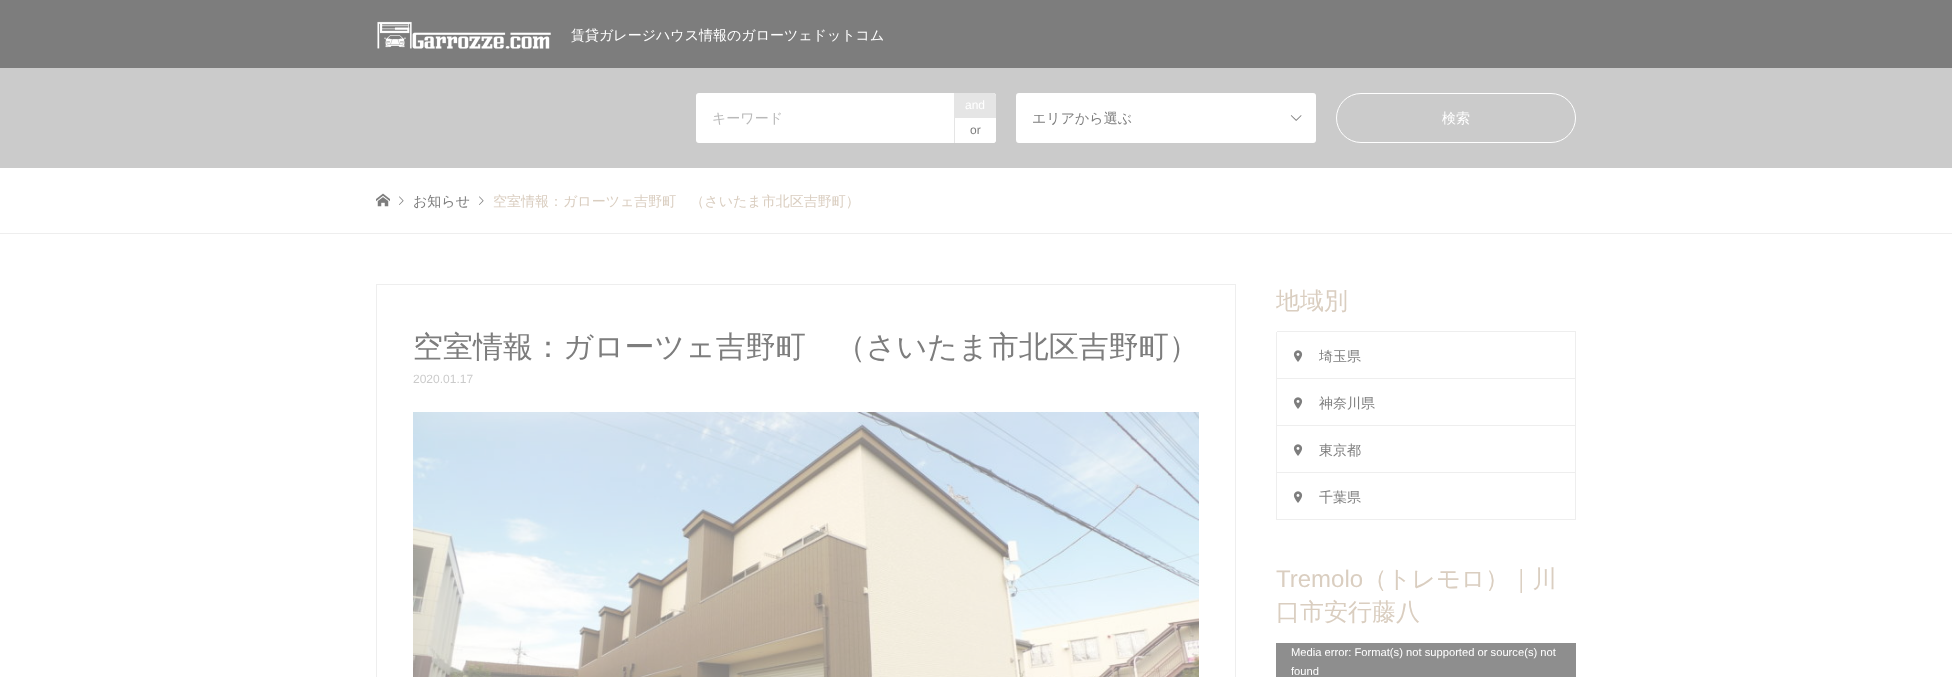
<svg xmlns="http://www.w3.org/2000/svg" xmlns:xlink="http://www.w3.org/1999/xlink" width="1952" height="677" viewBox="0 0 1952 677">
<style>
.cls-1{font:500 14px WenQuanYi Zen Hei;fill:#ffffff}
.cls-2{font:500 14px WenQuanYi Zen Hei;fill:#b9b9b9}
.cls-3{font:12px Liberation Sans;fill:#ffffff}
.cls-4{font:12px Liberation Sans;fill:#7d7d7d}
.cls-5{font:500 14px WenQuanYi Zen Hei;fill:#7d7d7d}
.cls-6{font:500 14px WenQuanYi Zen Hei;fill:#dacec0}
.cls-7{font:500 30px WenQuanYi Zen Hei;fill:#7d7d7d}
.cls-8{font:12px Liberation Sans;fill:#cbcbcb}
.cls-9{font:500 24px WenQuanYi Zen Hei;fill:#dacec0}
.cls-10{font:24px Liberation Sans;fill:#dacec0}
.cls-11{font:11.2px Liberation Sans;fill:#ffffff}
</style>
<rect width="100%" height="100%" fill="#ffffff"/>
<rect fill="#7d7d7d" x="0" y="0" width="1952" height="68"/>
<image xlink:href="image0.png" x="377" y="21" width="174" height="28"/>
<rect fill="#cbcbcb" x="0" y="68" width="1952" height="100"/>
<rect fill="#ffffff" x="696" y="93" width="300" height="50" rx="3"/>
<path fill="#e5e5e5" d="M954 93H993C994.5 93 996 94.5 996 96V118H954Z"/>
<path fill="#ffffff" d="M954 118H996V140C996 141.5 994.5 143 993 143H954Z"/>
<rect fill="#e5e5e5" x="954" y="118" width="1" height="25"/>
<rect fill="#ffffff" x="1016" y="93" width="300" height="50" rx="3"/>
<image xlink:href="image1.png" x="1290" y="115" width="12" height="6"/>
<rect fill="none" stroke="#ffffff" x="1336.5" y="93.5" width="239" height="49" rx="24.5"/>
<rect fill="#eeeeee" x="0" y="233" width="1952" height="1"/>
<image xlink:href="image2.png" x="376" y="193" width="14" height="14"/>
<image xlink:href="image3.png" x="399" y="196" width="5" height="9"/>
<image xlink:href="image3.png" x="479" y="196" width="5" height="9"/>
<rect fill="none" stroke="#eeeeee" x="376.5" y="284.5" width="859" height="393"/>
<image xlink:href="image4.png" x="413" y="412" width="786" height="265"/>
<rect fill="#eeeeee" x="1276" y="332" width="1" height="188"/>
<rect fill="#eeeeee" x="1277" y="331" width="299" height="1"/>
<rect fill="#eeeeee" x="1575" y="331" width="1" height="48"/>
<rect fill="#eeeeee" x="1277" y="378" width="299" height="1"/>
<image xlink:href="image5.png" x="1293" y="350" width="10" height="12"/>
<rect fill="#eeeeee" x="1575" y="378" width="1" height="48"/>
<rect fill="#eeeeee" x="1277" y="425" width="299" height="1"/>
<image xlink:href="image5.png" x="1293" y="397" width="10" height="12"/>
<rect fill="#eeeeee" x="1575" y="425" width="1" height="48"/>
<rect fill="#eeeeee" x="1277" y="472" width="299" height="1"/>
<image xlink:href="image5.png" x="1293" y="444" width="10" height="12"/>
<rect fill="#eeeeee" x="1575" y="472" width="1" height="48"/>
<rect fill="#eeeeee" x="1277" y="519" width="299" height="1"/>
<image xlink:href="image5.png" x="1293" y="491" width="10" height="12"/>
<rect fill="#8e8e8e" x="1276" y="643" width="300" height="34"/>
<text class="cls-1" x="571" y="40">賃貸ガレージハウス情報のガローツェドットコム</text>
<text class="cls-2" x="712" y="123">キーワード</text>
<text class="cls-3" x="965" y="109">and</text>
<text class="cls-4" x="970" y="134">or</text>
<text class="cls-5" x="1032" y="123">エリアから選ぶ</text>
<text class="cls-1" x="1442" y="123">検索</text>
<text class="cls-5" x="413" y="206">お知らせ</text>
<text class="cls-6" x="493" y="206">空室情報：ガローツェ吉野町　（さいたま市北区吉野町）</text>
<text class="cls-7" x="413" y="357">空室情報：ガローツェ吉野町　（さいたま市北区吉野町）</text>
<text class="cls-8" x="413" y="383">2020.01.17</text>
<text class="cls-9" x="1276" y="309">地域別</text>
<text class="cls-5" x="1319" y="361">埼玉県</text>
<text class="cls-5" x="1319" y="408">神奈川県</text>
<text class="cls-5" x="1319" y="455">東京都</text>
<text class="cls-5" x="1319" y="502">千葉県</text>
<text class="cls-10" x="1276" y="587">Tremolo</text>
<text class="cls-9" x="1363" y="587">（トレモロ）｜川</text>
<text class="cls-9" x="1276" y="620">口市安行藤八</text>
<text class="cls-11"><tspan x="1291" y="656">Media error: Format(s) not supported or source(s) not</tspan><tspan x="1291" y="675">found</tspan></text>
</svg>
